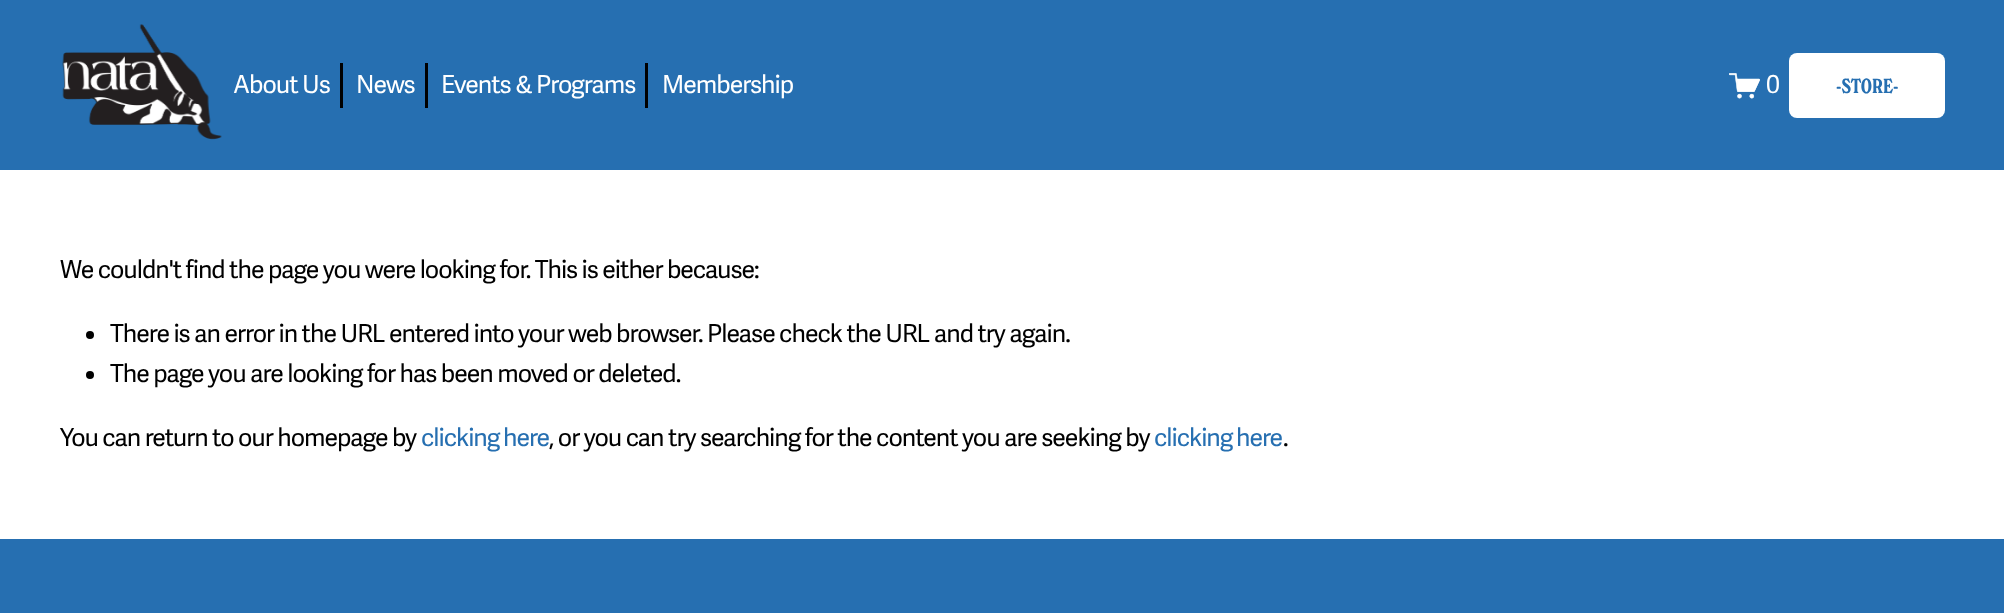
<svg xmlns="http://www.w3.org/2000/svg" xmlns:xlink="http://www.w3.org/1999/xlink" width="2004" height="613" viewBox="0 0 2004 613">
<style>
.cls-1{font:24.8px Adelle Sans;letter-spacing:-1px;fill:#ffffff}
.cls-2{font:600 20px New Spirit;fill:#266fb1}
.cls-3{font:24.8px Adelle Sans;letter-spacing:-1px;fill:#000000}
.cls-4{font:24.8px Adelle Sans;letter-spacing:-1px;fill:#266fb1}
</style>
<rect width="100%" height="100%" fill="#ffffff"/>
<rect fill="#266fb1" x="0" y="0" width="2004" height="170"/>
<image xlink:href="image0.png" x="62" y="24" width="160" height="116"/>
<rect fill="#000000" x="340" y="63" width="3" height="45"/>
<rect fill="#000000" x="425" y="63" width="3" height="45"/>
<rect fill="#000000" x="645" y="63" width="3" height="45"/>
<image xlink:href="image1.png" x="1729" y="73" width="31" height="26"/>
<rect fill="#ffffff" x="1789" y="53" width="156" height="65" rx="8"/>
<circle fill="#000000" cx="90" cy="335" r="4"/>
<circle fill="#000000" cx="90" cy="375" r="4"/>
<rect fill="#266fb1" x="0" y="539" width="2004" height="74"/>
<text class="cls-1" x="233" y="93">About Us</text>
<text class="cls-1" x="356" y="93">News</text>
<text class="cls-1" x="441" y="93">Events &amp; Programs</text>
<text class="cls-1" x="662" y="93">Membership</text>
<text class="cls-1" x="1766" y="93">0</text>
<text class="cls-2" x="1836" y="93">-STORE-</text>
<text class="cls-3" x="60" y="278">We couldn't find the page you were looking for. This is either because:</text>
<text class="cls-3"><tspan x="110" y="342">There is an error in the URL entered into your web browser. Please check the URL and try again.</tspan><tspan x="110" y="382">The page you are looking for has been moved or deleted.</tspan></text>
<text class="cls-3" x="60" y="446">You can return to our homepage by</text>
<text class="cls-4" x="421" y="446" word-spacing="-1">clicking here</text>
<text class="cls-3" x="549" y="446">, or you can try searching for the content you are seeking by</text>
<text class="cls-4" x="1154" y="446" word-spacing="-1">clicking here</text>
<text class="cls-3" x="1283" y="446">.</text>
</svg>
